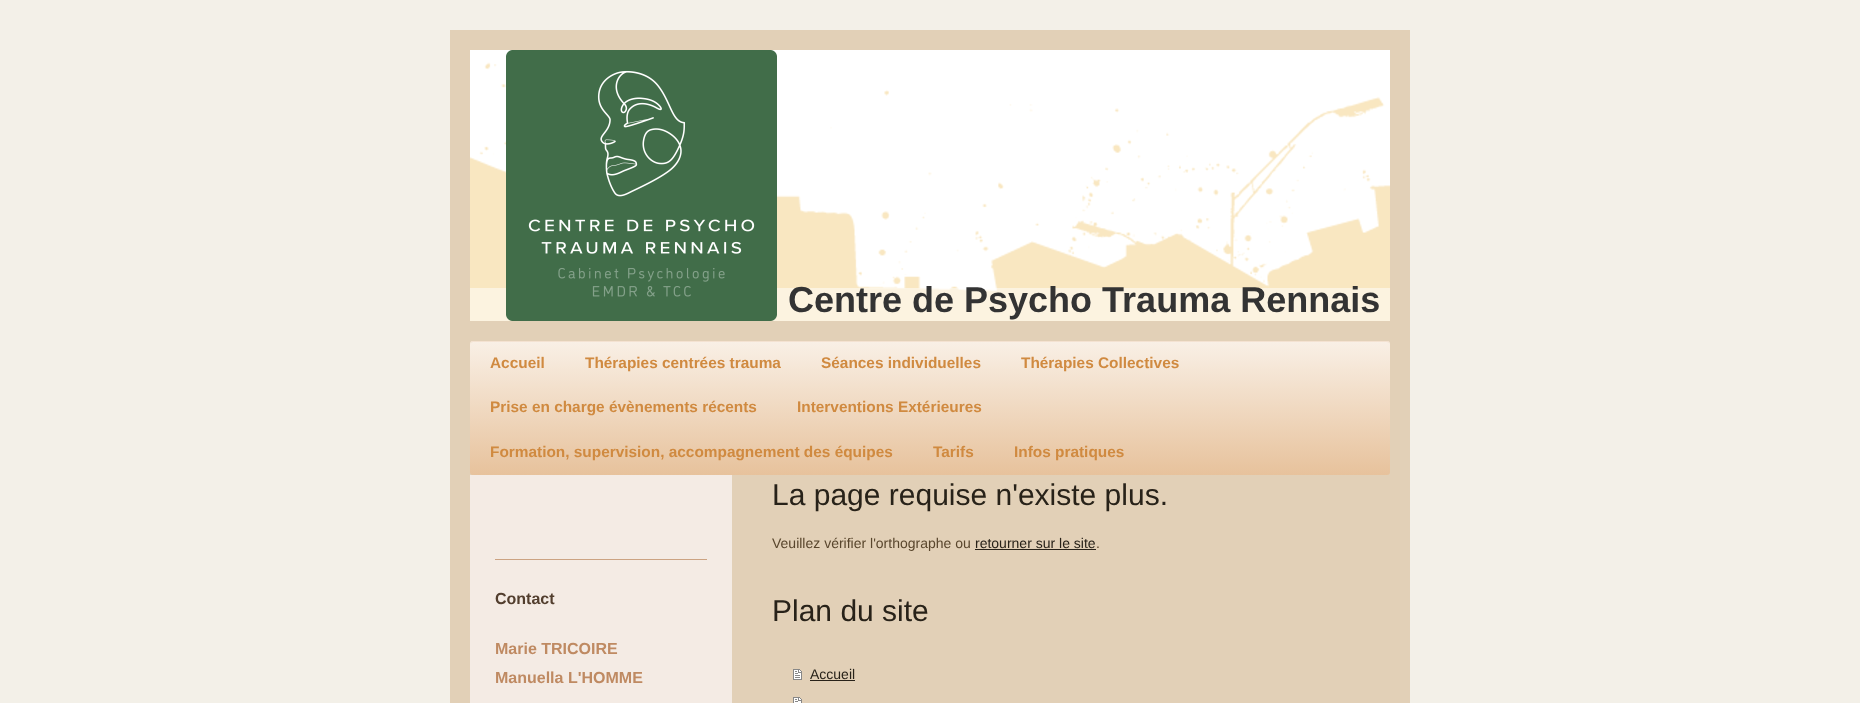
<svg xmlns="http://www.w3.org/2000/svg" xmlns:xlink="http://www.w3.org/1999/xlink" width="1860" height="703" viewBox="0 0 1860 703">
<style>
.cls-1{font:bold 36px Liberation Sans;fill:#333333}
.cls-2{font:bold 15.4px Liberation Sans;fill:#d08a40}
.cls-3{font:30px Liberation Sans;fill:#282219}
.cls-4{font:14px Liberation Sans;fill:#59462d}
.cls-5{font:14px Liberation Sans;fill:#282219}
.cls-6{font:bold 16px Liberation Sans;fill:#523e2e}
.cls-7{font:bold 16px Liberation Sans;fill:#bf8a62}
</style>
<defs>
<linearGradient id="g1" gradientUnits="userSpaceOnUse" x1="470" y1="341" x2="470" y2="475"><stop offset="0" stop-color="#f9f0e6"/><stop offset="1" stop-color="#e7c29c"/></linearGradient>
</defs>
<rect width="100%" height="100%" fill="#f3f0e8"/>
<rect fill="#e2d0b7" x="450" y="30" width="960" height="673"/>
<rect fill="#f9e7c1" x="470" y="62" width="920" height="259"/>
<image xlink:href="image0.png" x="470" y="50" width="920" height="242"/>
<rect fill="#ffffff" fill-opacity="0.5" x="470" y="288" width="920" height="33"/>
<image xlink:href="image1.png" x="506" y="50" width="271" height="271"/>
<rect fill="url(#g1)" x="470" y="341" width="920" height="134" rx="3"/>
<path fill="#efd6bd" d="M473 342H1387C1389 342 1390 343 1390 345C1390 343 1389 341 1387 341H473C471 341 470 343 470 345C470 343 471 342 473 342Z"/>
<path fill="#ffffff" fill-opacity="0.3" d="M473 342H1387C1389 342 1390 343 1390 345C1390 343 1389 341 1387 341H473C471 341 470 343 470 345C470 343 471 342 473 342Z"/>
<rect fill="#f4ebe4" x="470" y="475" width="262" height="228"/>
<rect fill="#282219" x="975" y="549" width="121" height="1"/>
<image xlink:href="image2.png" x="793" y="669" width="9" height="11"/>
<rect fill="#282219" x="810" y="680" width="45" height="1"/>
<image xlink:href="image3.png" x="793" y="697" width="9" height="6"/>
<rect fill="#cca382" x="495" y="559" width="212" height="1"/>
<text class="cls-1" x="788" y="312">Centre de Psycho Trauma Rennais</text>
<text class="cls-2" x="490" y="368">Accueil</text>
<text class="cls-2" x="585" y="368">Thérapies centrées trauma</text>
<text class="cls-2" x="821" y="368">Séances individuelles</text>
<text class="cls-2" x="1021" y="368">Thérapies Collectives</text>
<text class="cls-2" x="490" y="412">Prise en charge évènements récents</text>
<text class="cls-2" x="797" y="412">Interventions Extérieures</text>
<text class="cls-2" x="490" y="457">Formation, supervision, accompagnement des équipes</text>
<text class="cls-2" x="933" y="457">Tarifs</text>
<text class="cls-2" x="1014" y="457">Infos pratiques</text>
<text class="cls-3" x="772" y="505">La page requise n'existe plus.</text>
<text class="cls-4" x="772" y="548">Veuillez vérifier l'orthographe ou</text>
<text class="cls-5" x="975" y="548">retourner sur le site</text>
<text class="cls-4" x="1096" y="548">.</text>
<text class="cls-3" x="772" y="621">Plan du site</text>
<text class="cls-5" x="810" y="679">Accueil</text>
<text class="cls-6" x="495" y="604">Contact</text>
<text class="cls-7"><tspan x="495" y="654">Marie TRICOIRE</tspan><tspan x="495" y="683">Manuella L'HOMME</tspan></text>
</svg>
